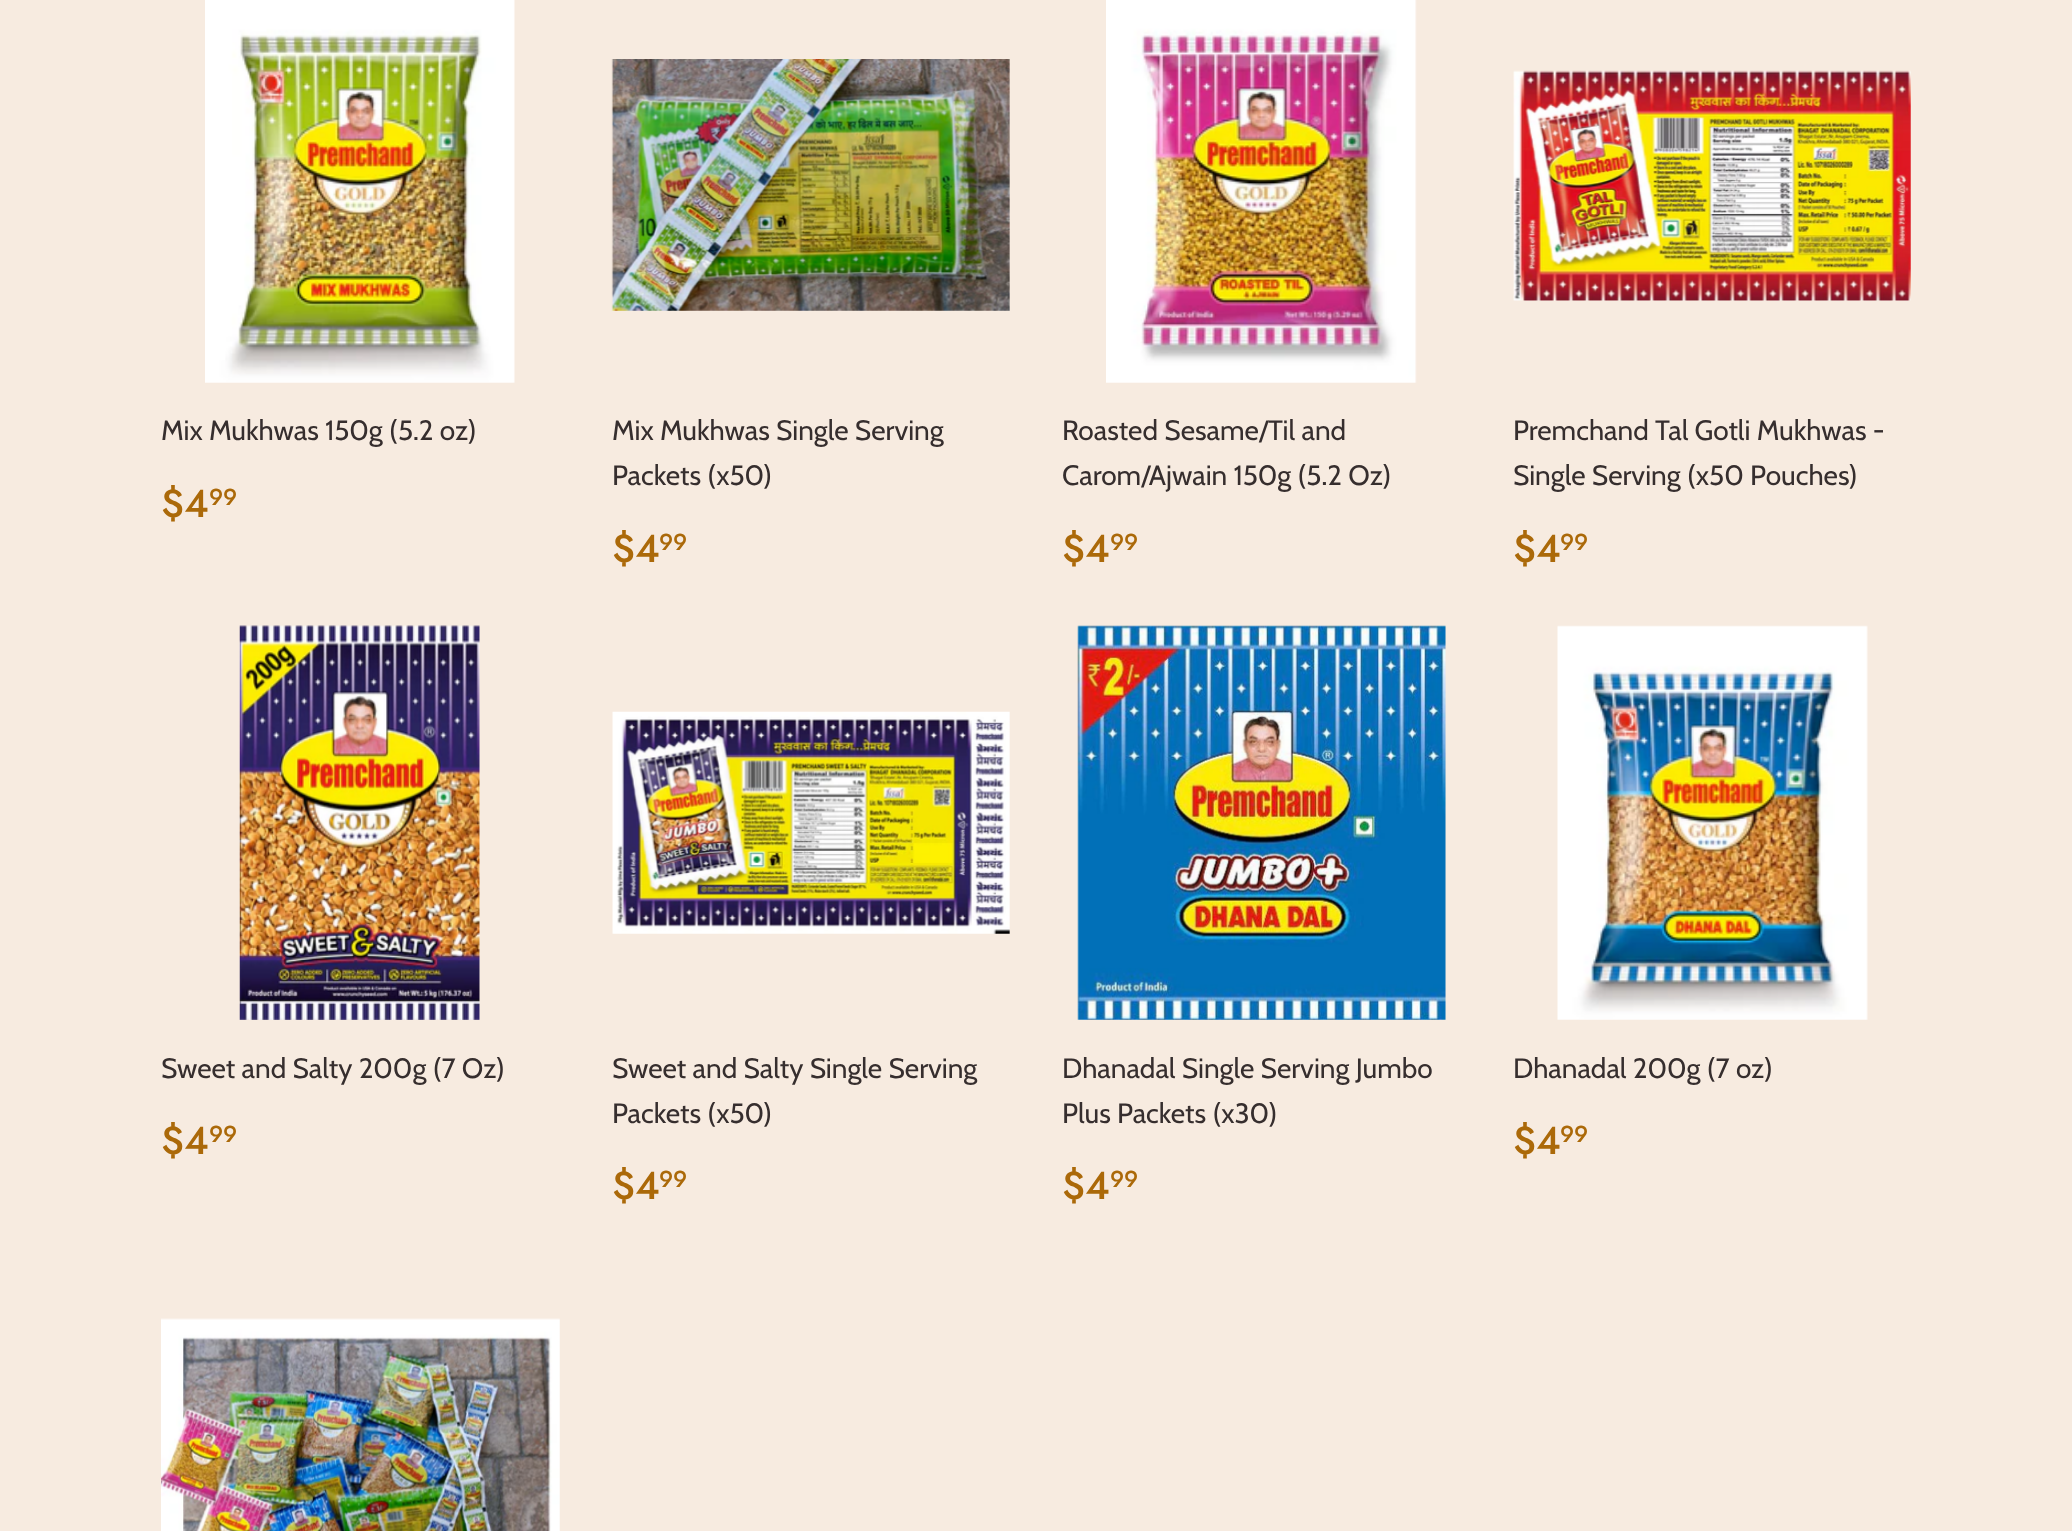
<svg xmlns="http://www.w3.org/2000/svg" xmlns:xlink="http://www.w3.org/1999/xlink" width="2072" height="1531" viewBox="0 0 2072 1531">
<style>
.cls-1{font:28px Cabin;fill:#362e2e}
.cls-2{font:500 39px Jost;fill:#ab6909}
.cls-3{font:500 23px Jost;fill:#ab6909}
</style>
<rect width="100%" height="100%" fill="#f7ebe0"/>
<image xlink:href="image0.png" x="205" y="0" width="310" height="383"/>
<image xlink:href="image1.png" x="611" y="59" width="399" height="252"/>
<image xlink:href="image2.png" x="1106" y="0" width="311" height="383"/>
<image xlink:href="image3.png" x="1513" y="70" width="398" height="231"/>
<image xlink:href="image4.png" x="239" y="625" width="241" height="395"/>
<image xlink:href="image5.png" x="612" y="711" width="398" height="223"/>
<image xlink:href="image6.png" x="1077" y="625" width="369" height="395"/>
<image xlink:href="image7.png" x="1557" y="625" width="311" height="395"/>
<image xlink:href="image8.png" x="161" y="1318" width="399" height="213"/>
<text class="cls-1" x="161" y="440">Mix Mukhwas 150g (5.2 oz)</text>
<text class="cls-2" x="161" y="517">$4</text>
<text class="cls-3" x="209" y="505">99</text>
<text class="cls-1"><tspan x="612" y="440">Mix Mukhwas Single Serving</tspan><tspan x="612" y="485">Packets (x50)</tspan></text>
<text class="cls-2" x="612" y="562">$4</text>
<text class="cls-3" x="659" y="550">99</text>
<text class="cls-1"><tspan x="1062" y="440">Roasted Sesame/Til and</tspan><tspan x="1062" y="485">Carom/Ajwain 150g (5.2 Oz)</tspan></text>
<text class="cls-2" x="1062" y="562">$4</text>
<text class="cls-3" x="1110" y="550">99</text>
<text class="cls-1"><tspan x="1513" y="440">Premchand Tal Gotli Mukhwas -</tspan><tspan x="1513" y="485">Single Serving (x50 Pouches)</tspan></text>
<text class="cls-2" x="1513" y="562">$4</text>
<text class="cls-3" x="1560" y="550">99</text>
<text class="cls-1" x="161" y="1078">Sweet and Salty 200g (7 Oz)</text>
<text class="cls-2" x="161" y="1154">$4</text>
<text class="cls-3" x="209" y="1142">99</text>
<text class="cls-1"><tspan x="612" y="1078">Sweet and Salty Single Serving</tspan><tspan x="612" y="1123">Packets (x50)</tspan></text>
<text class="cls-2" x="612" y="1199">$4</text>
<text class="cls-3" x="659" y="1187">99</text>
<text class="cls-1"><tspan x="1062" y="1078">Dhanadal Single Serving Jumbo</tspan><tspan x="1062" y="1123">Plus Packets (x30)</tspan></text>
<text class="cls-2" x="1062" y="1199">$4</text>
<text class="cls-3" x="1110" y="1187">99</text>
<text class="cls-1" x="1513" y="1078">Dhanadal 200g (7 oz)</text>
<text class="cls-2" x="1513" y="1154">$4</text>
<text class="cls-3" x="1560" y="1142">99</text>
</svg>
